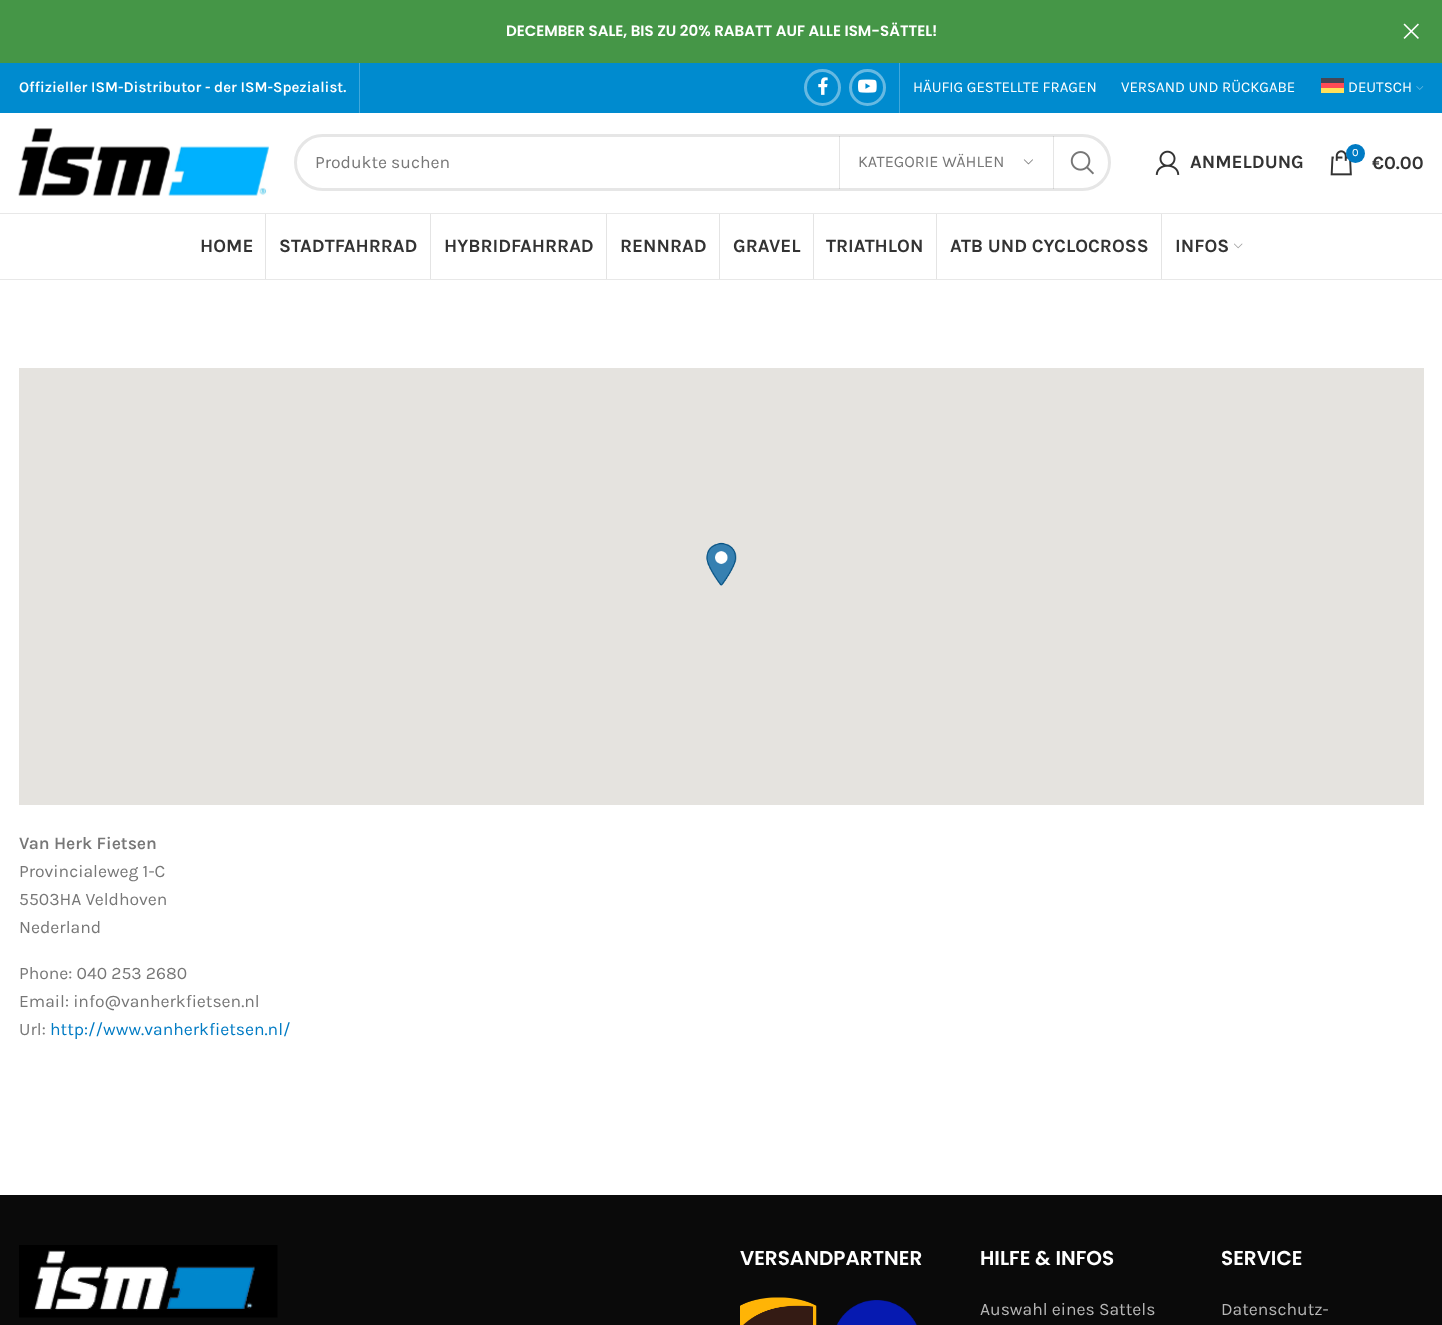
<svg xmlns="http://www.w3.org/2000/svg" xmlns:xlink="http://www.w3.org/1999/xlink" width="1442" height="1325" viewBox="0 0 1442 1325">
<style>
.cls-1{font:600 15px Poppins;fill:#ffffff}
.cls-2{font:600 15px Karla;fill:#ffffff}
.cls-3{font:15px Karla;fill:#ffffff}
.cls-4{font:17.5px Karla;fill:#777777}
.cls-5{font:16.25px Karla;fill:#777777}
.cls-6{font:bold 18.75px Karla;fill:#333333}
.cls-7{font:11px Karla;fill:#ffffff}
.cls-8{font:600 17.5px Karla;fill:#777777}
.cls-9{font:17.5px Karla;fill:#007bc4}
.cls-10{font:600 20px Poppins;fill:#ffffff}
.cls-11{font:17.5px Karla;fill:#b6b6b6}
</style>
<rect width="100%" height="100%" fill="#ffffff"/>
<rect fill="#459647" x="0" y="0" width="1442" height="63"/>
<image xlink:href="image0.png" x="1403" y="23" width="16" height="16"/>
<rect fill="#008bcf" x="0" y="63" width="1442" height="50"/>
<rect fill="#40a8db" x="359" y="63" width="1" height="50"/>
<circle fill="none" stroke="#66b9e2" stroke-width="3" cx="822.5" cy="87.5" r="17"/>
<image xlink:href="image1.png" x="818" y="77" width="10" height="18"/>
<circle fill="none" stroke="#66b9e2" stroke-width="3" cx="867.5" cy="87.5" r="17"/>
<image xlink:href="image2.png" x="858" y="79" width="19" height="14"/>
<rect fill="#40a8db" x="899" y="63" width="1" height="50"/>
<rect fill="#464655" x="1321" y="78" width="23" height="5"/>
<rect fill="#ff4b55" x="1321" y="83" width="23" height="5"/>
<rect fill="#ffe15a" x="1321" y="88" width="23" height="5"/>
<image xlink:href="image3.png" x="1416" y="86" width="8" height="4"/>
<rect fill="#e8e8e8" x="0" y="213" width="1442" height="1"/>
<image xlink:href="image4.png" x="18" y="128" width="251" height="68"/>
<rect fill="none" stroke="#e6e6e6" stroke-width="3" x="295.5" y="135.5" width="814" height="54" rx="27"/>
<rect fill="#000000" fill-opacity="0.1" x="1053" y="136" width="1" height="53"/>
<rect fill="#000000" fill-opacity="0.1" x="839" y="136" width="1" height="53"/>
<image xlink:href="image5.png" x="1023" y="159" width="10" height="6"/>
<image xlink:href="image6.png" x="1070" y="151" width="24" height="24"/>
<image xlink:href="image7.png" x="1155" y="150" width="25" height="25"/>
<image xlink:href="image8.png" x="1330" y="150" width="22" height="26"/>
<circle fill="#007bc4" cx="1355.5" cy="153.5" r="9.5"/>
<rect fill="#e8e8e8" x="0" y="279" width="1442" height="1"/>
<rect fill="#e4e4e4" x="265" y="214" width="1" height="65"/>
<rect fill="#e4e4e4" x="430" y="214" width="1" height="65"/>
<rect fill="#e4e4e4" x="606" y="214" width="1" height="65"/>
<rect fill="#e4e4e4" x="719" y="214" width="1" height="65"/>
<rect fill="#e4e4e4" x="813" y="214" width="1" height="65"/>
<rect fill="#e4e4e4" x="936" y="214" width="1" height="65"/>
<rect fill="#e4e4e4" x="1161" y="214" width="1" height="65"/>
<image xlink:href="image9.png" x="1234" y="243" width="9" height="6"/>
<rect fill="#e5e3df" x="19" y="368" width="1405" height="437"/>
<image xlink:href="image10.png" x="706" y="542" width="31" height="44"/>
<rect fill="#0a0a0a" x="0" y="1195" width="1442" height="130"/>
<image xlink:href="image11.png" x="19" y="1245" width="259" height="73"/>
<image xlink:href="image12.png" x="740" y="1297" width="77" height="28"/>
<image xlink:href="image13.png" x="836" y="1300" width="81" height="25"/>
<text class="cls-1" x="506" y="36">DECEMBER SALE, BIS ZU 20% RABATT AUF ALLE ISM-SÄTTEL!</text>
<text class="cls-2" x="19" y="92">Offizieller ISM-Distributor - der ISM-Spezialist.</text>
<text class="cls-3" x="913" y="92">HÄUFIG GESTELLTE FRAGEN</text>
<text class="cls-3" x="1121" y="92">VERSAND UND RÜCKGABE</text>
<text class="cls-3" x="1348" y="92">DEUTSCH</text>
<text class="cls-4" x="315" y="168">Produkte suchen</text>
<text class="cls-5" x="858" y="167">KATEGORIE WÄHLEN</text>
<text class="cls-6" x="1190" y="168">ANMELDUNG</text>
<text class="cls-7" x="1352" y="156">0</text>
<text class="cls-6" x="1372" y="169">€0.00</text>
<text class="cls-6" x="200" y="252">HOME</text>
<text class="cls-6" x="279" y="252">STADTFAHRRAD</text>
<text class="cls-6" x="444" y="252">HYBRIDFAHRRAD</text>
<text class="cls-6" x="620" y="252">RENNRAD</text>
<text class="cls-6" x="733" y="252">GRAVEL</text>
<text class="cls-6" x="826" y="252">TRIATHLON</text>
<text class="cls-6" x="950" y="252">ATB UND CYCLOCROSS</text>
<text class="cls-6" x="1175" y="252">INFOS</text>
<text class="cls-8" x="19" y="849">Van Herk Fietsen</text>
<text class="cls-4"><tspan x="19" y="877">Provincialeweg 1-C</tspan><tspan x="19" y="905">5503HA Veldhoven</tspan><tspan x="19" y="933">Nederland</tspan></text>
<text class="cls-4"><tspan x="19" y="979">Phone: 040 253 2680</tspan><tspan x="19" y="1007">Email: info@vanherkfietsen.nl</tspan><tspan x="19" y="1035">Url:</tspan></text>
<text class="cls-9" x="50" y="1035">http://www.vanherkfietsen.nl/</text>
<text class="cls-10" x="740" y="1265">VERSANDPARTNER</text>
<text class="cls-10" x="980" y="1265">HILFE &amp; INFOS</text>
<text class="cls-11" x="980" y="1315">Auswahl eines Sattels</text>
<text class="cls-10" x="1221" y="1265">SERVICE</text>
<text class="cls-11" x="1221" y="1315">Datenschutz-</text>
</svg>
